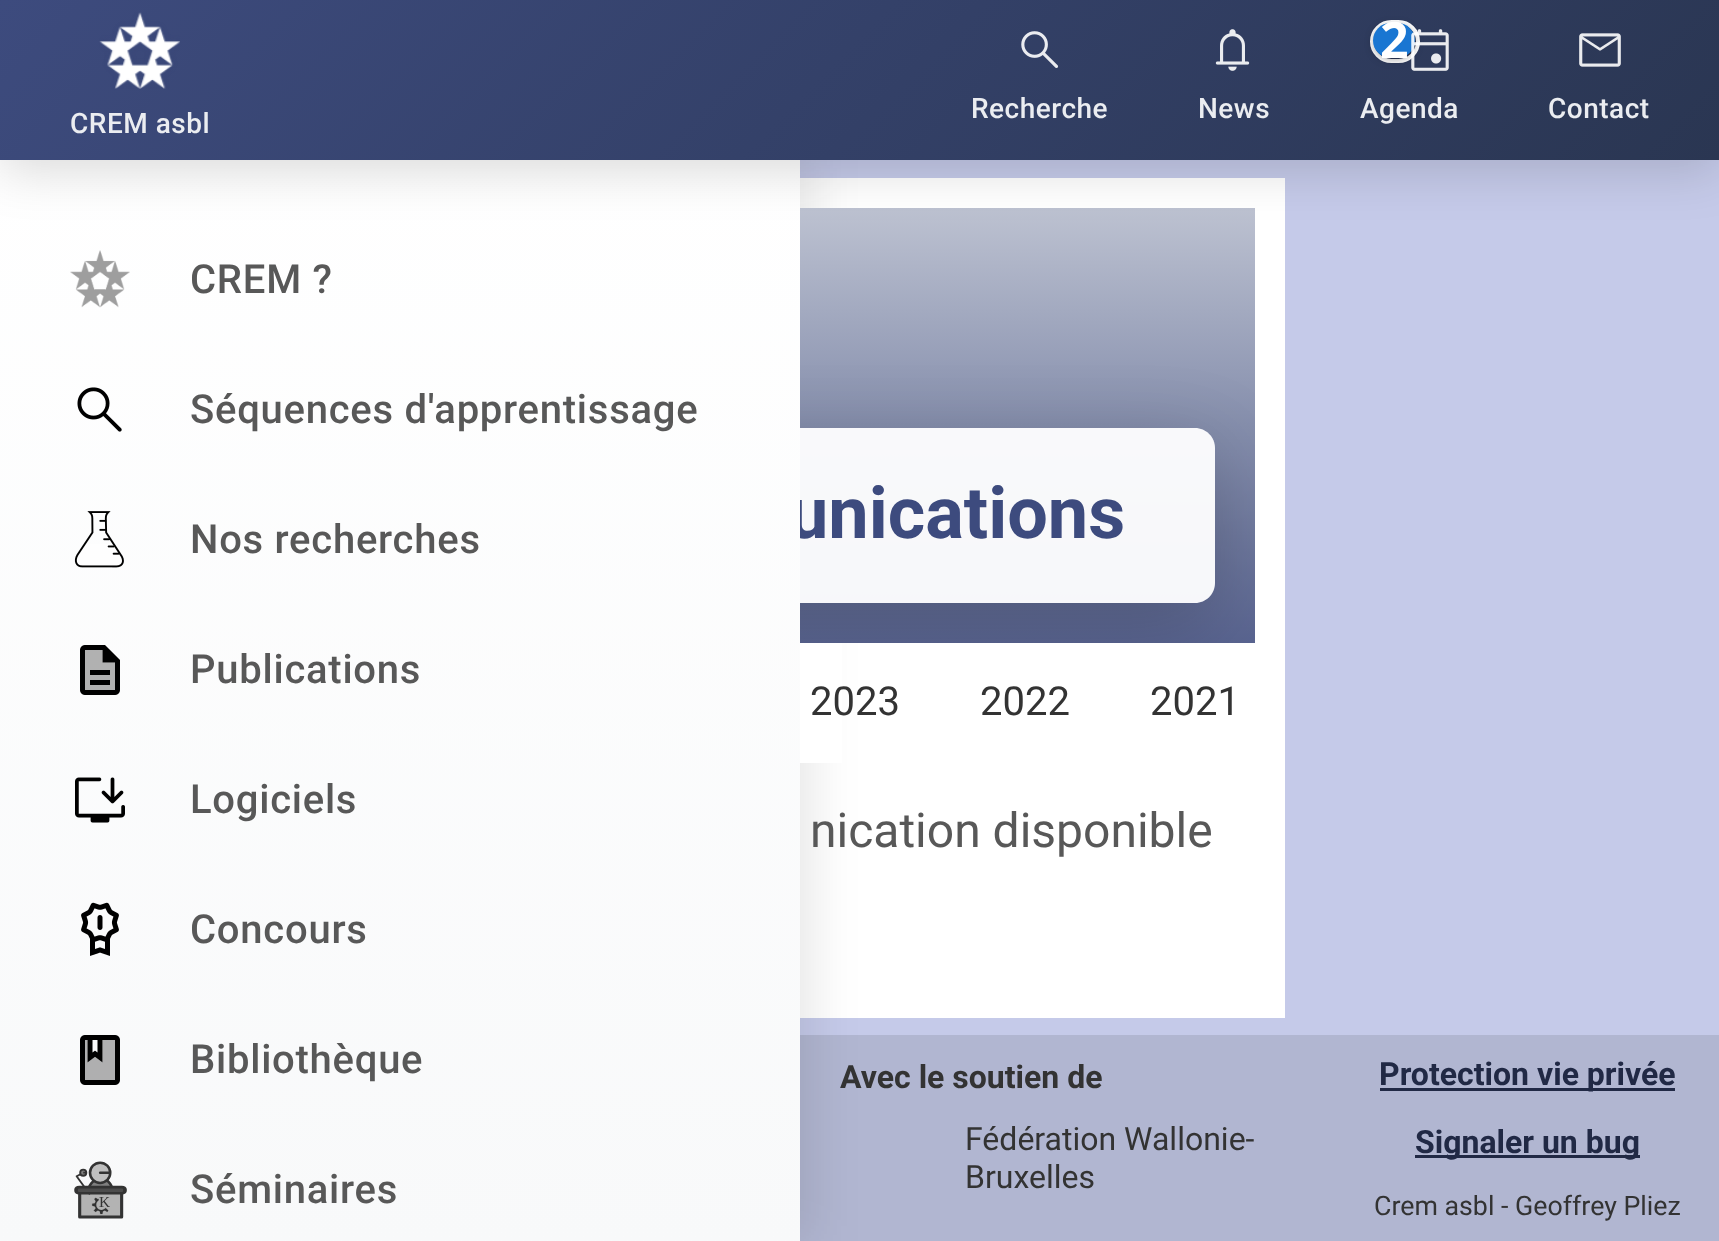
<svg xmlns="http://www.w3.org/2000/svg" xmlns:xlink="http://www.w3.org/1999/xlink" width="1719" height="1241" viewBox="0 0 1719 1241">
<style>
.cls-1{font:500 28px Roboto;letter-spacing:0.5px;fill:#ebedf1}
.cls-2{font:bold 50px Noto Sans;letter-spacing:-1px;fill:#ffffff}
.cls-3{font:500 40px Roboto;letter-spacing:0.75px;fill:#585858}
.cls-4{font:bold 72px Roboto;fill:#3d4b7e}
.cls-5{font:40px Roboto;fill:#333333}
.cls-6{font:48px Roboto;fill:#585858}
.cls-7{font:bold 32px Roboto;fill:#333333}
.cls-8{font:32px Roboto;fill:#333333}
.cls-9{font:bold 32px Roboto;fill:#212945}
.cls-10{font:26.75px Roboto;fill:#333333}
</style>
<defs>
<linearGradient id="g1" gradientUnits="userSpaceOnUse" x1="400" y1="160" x2="400" y2="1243"><stop offset="0" stop-color="#ffffff"/><stop offset="1" stop-color="#f8f9fa"/></linearGradient>
<linearGradient id="g2" gradientUnits="userSpaceOnUse" x1="843" y1="207" x2="843" y2="643"><stop offset="0" stop-color="#bdc2d1"/><stop offset="0.5" stop-color="#868fad"/><stop offset="1" stop-color="#596490"/></linearGradient>
<linearGradient id="g3" gradientUnits="userSpaceOnUse" x1="390" y1="-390" x2="1330" y2="550"><stop offset="0" stop-color="#3d4b7e"/><stop offset="1" stop-color="#2a3652"/></linearGradient>
<clipPath id="clip1"><rect x="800" y="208" width="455" height="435"/></clipPath>
<clipPath id="clip2"><path d="M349 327H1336V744H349ZM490 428H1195C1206 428 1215 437 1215 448V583C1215 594 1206 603 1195 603H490C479 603 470 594 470 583V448C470 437 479 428 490 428Z" clip-rule="evenodd"/></clipPath>
<clipPath id="clip3"><rect x="800" y="208" width="455" height="435"/></clipPath>
</defs>
<rect width="100%" height="100%" fill="#c5cae9"/>
<rect fill="#ffffff" x="800" y="178" width="485" height="840"/>
<rect fill="#b1b6d1" x="800" y="1035" width="919" height="206"/>
<rect fill="#000000" fill-opacity="0.1" filter="blur(25px)" x="10" y="160" width="800" height="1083"/>
<rect fill="url(#g1)" x="0" y="160" width="800" height="1081"/>
<rect fill="url(#g2)" x="800" y="208" width="455" height="435"/>
<rect fill="#000000" fill-opacity="0.15" filter="blur(25px)" x="0" y="10" width="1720" height="160"/>
<rect fill="url(#g3)" x="0" y="0" width="1719" height="160"/>
<image xlink:href="image0.png" x="1021" y="31" width="38" height="37"/>
<image xlink:href="image1.png" x="1215" y="29" width="35" height="42"/>
<rect fill="none" stroke="#ffffff" stroke-width="4" x="1372" y="22" width="46" height="39" rx="19.5"/>
<rect fill="#000000" fill-opacity="0.3" filter="blur(4px)" x="1373" y="25" width="42" height="35" rx="17.5"/>
<rect fill="#1976d2" x="1373" y="23" width="42" height="35" rx="17.5"/>
<image xlink:href="image2.png" x="1411" y="29" width="38" height="42"/>
<image xlink:href="image3.png" x="1579" y="33" width="42" height="34"/>
<image xlink:href="image4.png" x="99" y="12" width="81" height="77"/>
<image xlink:href="image5.png" x="70" y="250" width="60" height="58"/>
<image xlink:href="image6.png" x="77" y="387" width="45" height="45"/>
<image xlink:href="image7.png" x="74" y="511" width="50" height="57"/>
<image xlink:href="image8.png" x="80" y="645" width="40" height="50"/>
<image xlink:href="image9.png" x="75" y="777" width="50" height="46"/>
<image xlink:href="image10.png" x="81" y="902" width="38" height="54"/>
<image xlink:href="image11.png" x="80" y="1035" width="40" height="50"/>
<image xlink:href="image12.png" x="74" y="1161" width="53" height="58"/>
<g clip-path="url(#clip1)">
<g clip-path="url(#clip2)">
<rect fill="#000000" fill-opacity="0.2" filter="blur(40px)" x="470" y="448" width="745" height="175" rx="20"/>
</g>
</g>
<path fill="#ffffff" fill-opacity="0.95" d="M800 428H1195C1206 428 1215 437 1215 448V583C1215 594 1206 603 1195 603H800Z"/>
<rect fill="#ffffff" x="800" y="643" width="42" height="120"/>
<rect fill="#212945" x="1380" y="1088" width="295" height="3"/>
<rect fill="#212945" x="1415" y="1155" width="225" height="3"/>
<text class="cls-1" x="971" y="118">Recherche</text>
<text class="cls-1" x="1198" y="118">News</text>
<text class="cls-2" x="1380" y="58">2</text>
<text class="cls-1" x="1360" y="118">Agenda</text>
<text class="cls-1" x="1548" y="118">Contact</text>
<text class="cls-1" x="70" y="133">CREM asbl</text>
<text class="cls-3" x="190" y="293">CREM ?</text>
<text class="cls-3" x="190" y="423">Séquences d'apprentissage</text>
<text class="cls-3" x="190" y="553">Nos recherches</text>
<text class="cls-3" x="190" y="683">Publications</text>
<text class="cls-3" x="190" y="813">Logiciels</text>
<text class="cls-3" x="190" y="943">Concours</text>
<text class="cls-3" x="190" y="1073">Bibliothèque</text>
<text class="cls-3" x="190" y="1203">Séminaires</text>
<g clip-path="url(#clip3)">
<text class="cls-4" x="788" y="538">unications</text>
</g>
<text class="cls-5" x="810" y="715">2023</text>
<text class="cls-5" x="980" y="715">2022</text>
<text class="cls-5" x="1150" y="715">2021</text>
<text class="cls-6" x="810" y="847">nication disponible</text>
<text class="cls-7" x="840" y="1088">Avec le soutien de</text>
<text class="cls-8"><tspan x="965" y="1150">Fédération Wallonie-</tspan><tspan x="965" y="1188">Bruxelles</tspan></text>
<text class="cls-9" x="1379" y="1085">Protection vie privée</text>
<text class="cls-9" x="1415" y="1153">Signaler un bug</text>
<text class="cls-10" x="1374" y="1215">Crem asbl - Geoffrey Pliez</text>
</svg>
